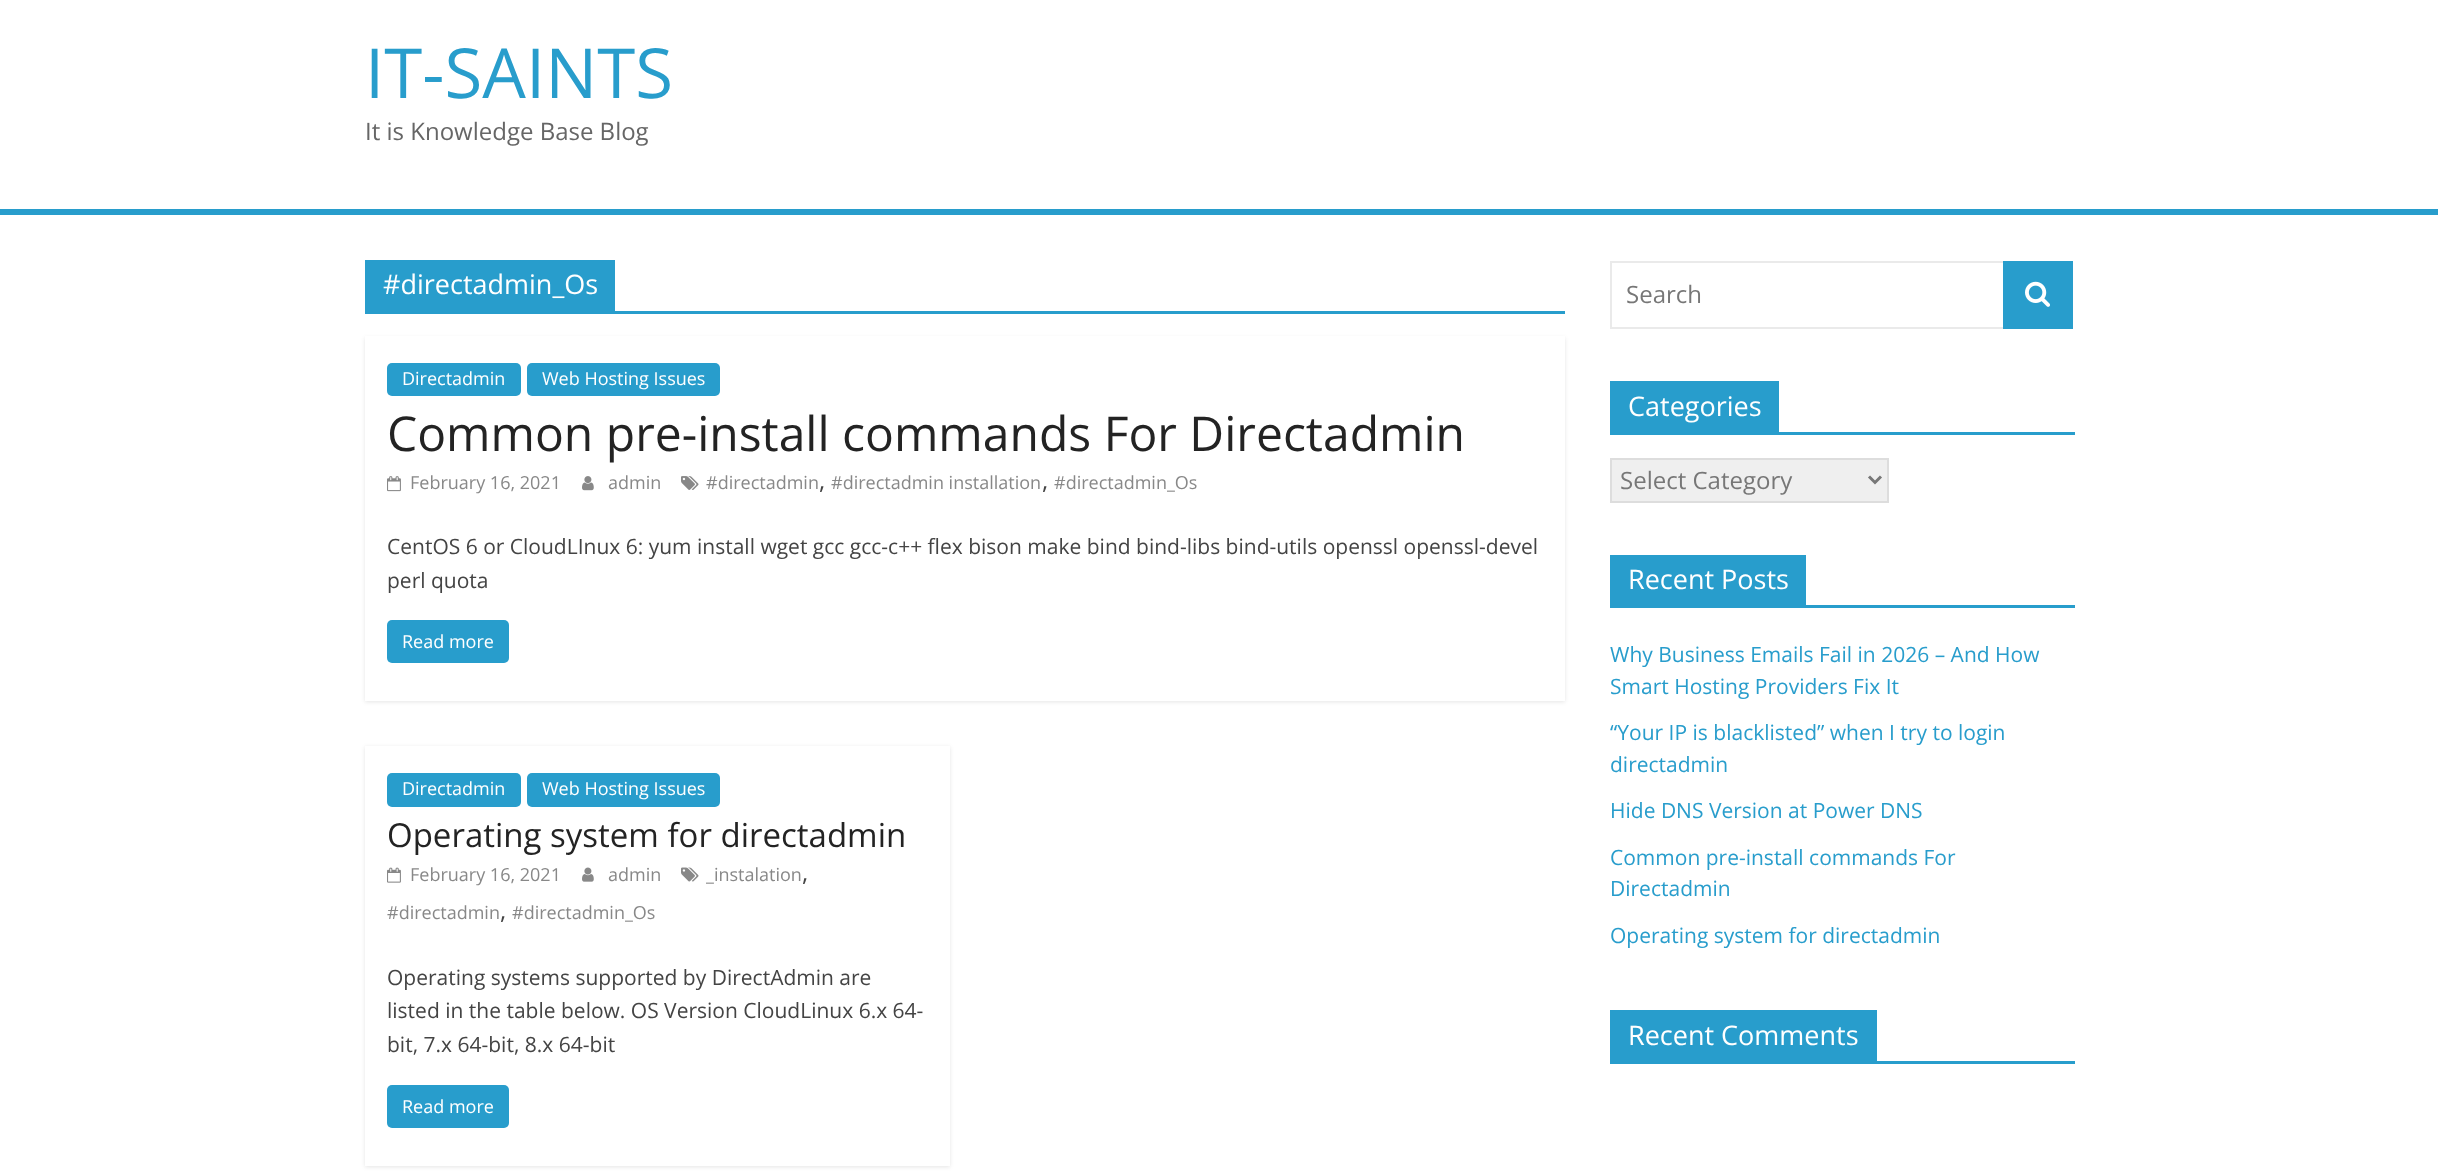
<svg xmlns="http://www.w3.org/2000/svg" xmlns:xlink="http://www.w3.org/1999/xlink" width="2438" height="1175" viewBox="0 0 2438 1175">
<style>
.cls-1{font:69px Open Sans;fill:#289dcc}
.cls-2{font:24px Open Sans;fill:#666666}
.cls-3{font:27px Open Sans;fill:#ffffff}
.cls-4{font:18px Open Sans;fill:#ffffff}
.cls-5{font:48px Open Sans;fill:#232323}
.cls-6{font:18px Open Sans;fill:#888888}
.cls-7{font:24px Open Sans;fill:#444444}
.cls-8{font:21px Open Sans;fill:#444444}
.cls-9{font:33px Open Sans;fill:#232323}
.cls-10{font:24px Open Sans;fill:#777777}
.cls-11{font:21px Open Sans;fill:#289dcc}
</style>
<defs>
<clipPath id="clip1"><path d="M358 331H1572V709H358ZM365 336H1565V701H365Z" clip-rule="evenodd"/></clipPath>
<clipPath id="clip2"><path d="M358 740H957V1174H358ZM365 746H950V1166H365Z" clip-rule="evenodd"/></clipPath>
</defs>
<rect width="100%" height="100%" fill="#ffffff"/>
<rect fill="#289dcc" x="0" y="209" width="2438" height="6"/>
<rect fill="#289dcc" x="365" y="311" width="1200" height="3"/>
<rect fill="#289dcc" x="365" y="260" width="250" height="51"/>
<g clip-path="url(#clip1)">
<rect fill="#000000" fill-opacity="0.1" filter="blur(2px)" x="365" y="338" width="1200" height="364"/>
</g>
<rect fill="#289dcc" x="387" y="363" width="134" height="33" rx="5"/>
<rect fill="#289dcc" x="527" y="363" width="193" height="33" rx="5"/>
<image xlink:href="image0.png" x="387" y="476" width="14" height="16"/>
<image xlink:href="image1.png" x="582" y="476" width="12" height="15"/>
<image xlink:href="image2.png" x="681" y="476" width="18" height="14"/>
<rect fill="#289dcc" x="387" y="620" width="122" height="43" rx="5"/>
<g clip-path="url(#clip2)">
<rect fill="#000000" fill-opacity="0.1" filter="blur(2px)" x="365" y="747" width="585" height="420"/>
</g>
<rect fill="#289dcc" x="387" y="773" width="134" height="34" rx="5"/>
<rect fill="#289dcc" x="527" y="773" width="193" height="34" rx="5"/>
<image xlink:href="image3.png" x="681" y="867" width="18" height="15"/>
<image xlink:href="image4.png" x="387" y="867" width="14" height="16"/>
<image xlink:href="image5.png" x="582" y="867" width="12" height="15"/>
<rect fill="#289dcc" x="387" y="1085" width="122" height="43" rx="5"/>
<rect fill="none" stroke="#eaeaea" stroke-width="2" x="1611" y="262" width="394" height="66"/>
<rect fill="#289dcc" x="2003" y="261" width="70" height="68"/>
<image xlink:href="image6.png" x="2025" y="281" width="25" height="26"/>
<rect fill="#289dcc" x="1610" y="432" width="465" height="3"/>
<rect fill="#289dcc" x="1610" y="381" width="169" height="51"/>
<rect fill="#efefef" stroke="#dddddd" stroke-width="2" x="1611" y="459" width="277" height="43"/>
<path fill="none" stroke="#777777" stroke-width="3" d="M1869 476.5L1875 482.5L1881 476.5"/>
<rect fill="#289dcc" x="1610" y="605" width="465" height="3"/>
<rect fill="#289dcc" x="1610" y="555" width="196" height="50"/>
<rect fill="#289dcc" x="1610" y="1061" width="465" height="3"/>
<rect fill="#289dcc" x="1610" y="1010" width="267" height="51"/>
<text class="cls-1" x="365" y="98">IT-SAINTS</text>
<text class="cls-2" x="365" y="140">It is Knowledge Base Blog</text>
<text class="cls-3" x="383" y="294">#directadmin_Os</text>
<text class="cls-4" x="402" y="385">Directadmin</text>
<text class="cls-4" x="542" y="385">Web Hosting Issues</text>
<text class="cls-5" x="387" y="451">Common pre-install commands For Directadmin</text>
<text class="cls-6" x="410" y="489">February 16, 2021</text>
<text class="cls-6" x="608" y="489">admin</text>
<text class="cls-6" x="706" y="489">#directadmin</text>
<text class="cls-7" x="819" y="489">,</text>
<text class="cls-6" x="831" y="489">#directadmin installation</text>
<text class="cls-7" x="1042" y="489">,</text>
<text class="cls-6" x="1054" y="489">#directadmin_Os</text>
<text class="cls-8"><tspan x="387" y="554">CentOS 6 or CloudLInux 6: yum install wget gcc gcc-c++ flex bison make bind bind-libs bind-utils openssl openssl-devel</tspan><tspan x="387" y="588">perl quota</tspan></text>
<text class="cls-4" x="402" y="648">Read more</text>
<text class="cls-4" x="402" y="795">Directadmin</text>
<text class="cls-4" x="542" y="795">Web Hosting Issues</text>
<text class="cls-9" x="387" y="847">Operating system for directadmin</text>
<text class="cls-6" x="706" y="881">_instalation</text>
<text class="cls-7" x="802" y="881">,</text>
<text class="cls-6" x="387" y="919">#directadmin</text>
<text class="cls-7" x="500" y="919">,</text>
<text class="cls-6" x="512" y="919">#directadmin_Os</text>
<text class="cls-6" x="410" y="881">February 16, 2021</text>
<text class="cls-6" x="608" y="881">admin</text>
<text class="cls-8"><tspan x="387" y="985">Operating systems supported by DirectAdmin are</tspan><tspan x="387" y="1018">listed in the table below. OS Version CloudLinux 6.x 64-</tspan><tspan x="387" y="1052">bit, 7.x 64-bit, 8.x 64-bit</tspan></text>
<text class="cls-4" x="402" y="1113">Read more</text>
<text class="cls-10" x="1626" y="303">Search</text>
<text class="cls-3" x="1628" y="416">Categories</text>
<text class="cls-10" x="1620" y="489">Select Category</text>
<text class="cls-3" x="1628" y="589">Recent Posts</text>
<text class="cls-11"><tspan x="1610" y="662">Why Business Emails Fail in 2026 – And How</tspan><tspan x="1610" y="694">Smart Hosting Providers Fix It</tspan></text>
<text class="cls-11"><tspan x="1610" y="740">“Your IP is blacklisted” when I try to login</tspan><tspan x="1610" y="772">directadmin</tspan></text>
<text class="cls-11" x="1610" y="818">Hide DNS Version at Power DNS</text>
<text class="cls-11"><tspan x="1610" y="865">Common pre-install commands For</tspan><tspan x="1610" y="896">Directadmin</tspan></text>
<text class="cls-11" x="1610" y="943">Operating system for directadmin</text>
<text class="cls-3" x="1628" y="1045">Recent Comments</text>
</svg>
